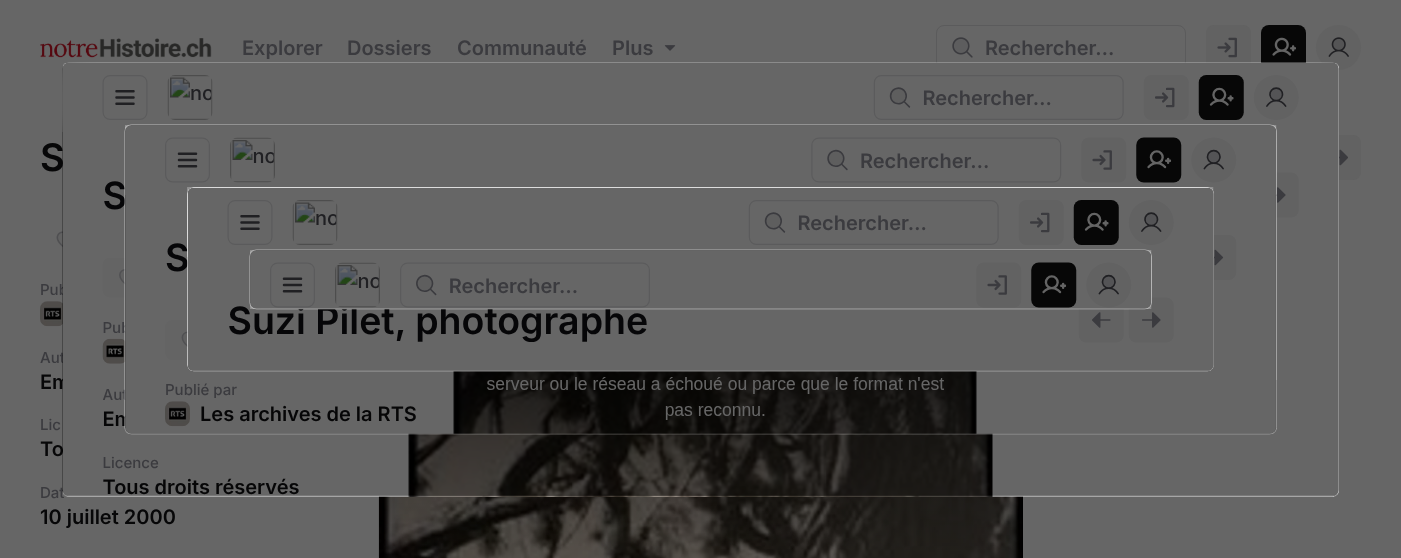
<svg xmlns="http://www.w3.org/2000/svg" xmlns:xlink="http://www.w3.org/1999/xlink" width="1401" height="558" viewBox="0 0 1401 558">
<style>
.cls-1{font:600 20px Inter;fill:#3b3b3f}
.cls-2{font:600 38px Inter;fill:#070708}
.cls-3{font:500 15px Inter;fill:#3b3b3f}
.cls-4{font:600 20px Inter;fill:#070708}
</style>
<defs>
<linearGradient id="g1" gradientUnits="userSpaceOnUse" x1="701" y1="220" x2="701" y2="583"><stop offset="0" stop-color="#000000" stop-opacity="0.8"/><stop offset="1" stop-color="#000000" stop-opacity="0"/></linearGradient>
</defs>
<rect width="100%" height="100%" fill="#666666"/>
<image xlink:href="image0.png" x="40" y="38" width="172" height="20"/>
<image xlink:href="image1.png" x="664" y="45" width="12" height="6"/>
<rect fill="none" stroke="#5b5b5c" x="936.5" y="25.5" width="249" height="44" rx="7.5"/>
<image xlink:href="image2.png" x="952" y="37" width="21" height="21"/>
<rect fill="#626262" x="1206" y="25" width="45" height="45" rx="8"/>
<image xlink:href="image3.png" x="1217" y="37" width="20" height="21"/>
<rect fill="#070707" x="1261" y="25" width="45" height="45" rx="8"/>
<image xlink:href="image4.png" x="1272" y="37" width="24" height="19"/>
<circle fill="#626262" cx="1338.5" cy="47.5" r="22.5"/>
<image xlink:href="image5.png" x="1328" y="37" width="21" height="20"/>
<rect fill="#626262" x="1316" y="135" width="45" height="45" rx="8"/>
<image xlink:href="image6.png" x="1339" y="149" width="9" height="17"/>
<image xlink:href="image7.png" x="56" y="231" width="7" height="17"/>
<rect fill="#626262" x="40" y="301" width="25" height="25" rx="8"/>
<image xlink:href="image8.png" x="40" y="301" width="23" height="26"/>
<rect fill="#000000" x="1022" y="496" width="1" height="62"/>
<image xlink:href="image9.png" x="378" y="496" width="645" height="62"/>
<rect fill="url(#g1)" x="385" y="496" width="632" height="62"/>
<text class="cls-1" x="242" y="55">Explorer</text>
<text class="cls-1" x="347" y="55">Dossiers</text>
<text class="cls-1" x="457" y="55">Communauté</text>
<text class="cls-1" x="612" y="55">Plus</text>
<text class="cls-1" x="985" y="55">Rechercher…</text>
<text class="cls-2" x="40" y="171">S</text>
<text class="cls-3" x="40" y="295">Pub</text>
<text class="cls-3" x="40" y="363">Aut</text>
<text class="cls-4" x="40" y="389">Em</text>
<text class="cls-3" x="40" y="430">Lic</text>
<text class="cls-4" x="40" y="456">To</text>
<text class="cls-3" x="40" y="498">Dat</text>
<text class="cls-4" x="40" y="524">10 juillet 2000</text>
<rect fill="#ffffff" x="63" y="63" width="1276" height="433" rx="6"/>
<image xlink:href="image10.png" x="62" y="62" width="1277" height="435"/>
</svg>
